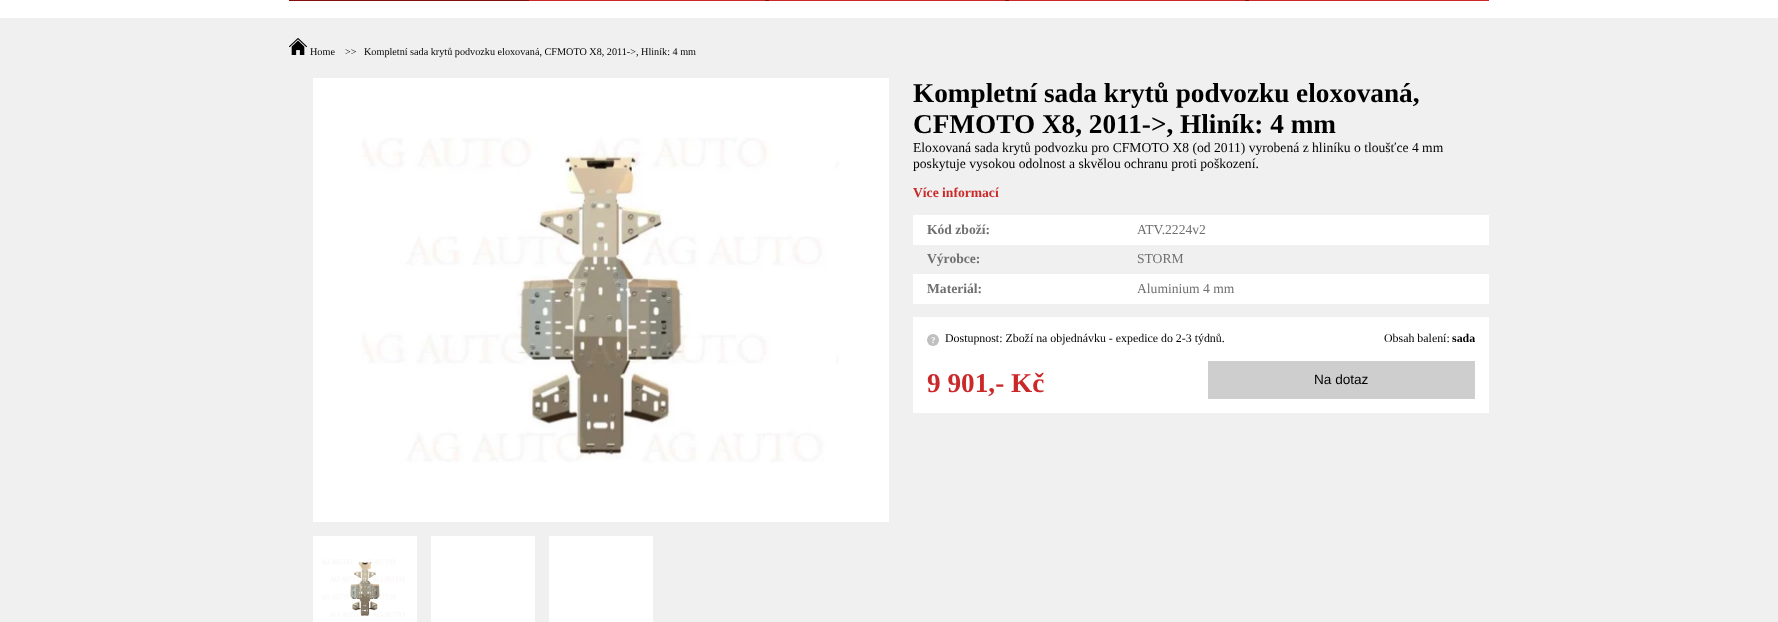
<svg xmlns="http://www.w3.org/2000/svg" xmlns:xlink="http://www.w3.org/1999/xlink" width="1778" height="622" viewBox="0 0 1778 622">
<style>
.cls-1{font:10.2px Liberation Serif;fill:#000000}
.cls-2{font:bold 27.25px Liberation Serif;fill:#000000}
.cls-3{font:13.6px Liberation Serif;fill:#000000}
.cls-4{font:bold 13.6px Liberation Serif;fill:#cb2929}
.cls-5{font:bold 13.6px Liberation Serif;fill:#707070}
.cls-6{font:13.6px Liberation Serif;fill:#707070}
.cls-7{font:bold 9px Liberation Serif;fill:#ffffff}
.cls-8{font:11.9px Liberation Serif;fill:#000000}
.cls-9{font:bold 11.9px Liberation Serif;fill:#000000}
.cls-10{font:bold 27.25px Liberation Serif;fill:#cb2929}
.cls-11{font:13.6px Liberation Sans;fill:#000000}
</style>
<rect width="100%" height="100%" fill="#f0f0f0"/>
<rect fill="#ffffff" x="0" y="0" width="1778" height="18"/>
<rect fill="#cb2929" x="529" y="0" width="960" height="1"/>
<rect fill="#820e0e" x="289" y="0" width="240" height="1"/>
<rect fill="#820e0e" x="765" y="0" width="4" height="1"/>
<rect fill="#820e0e" x="1005" y="0" width="4" height="1"/>
<rect fill="#820e0e" x="1245" y="0" width="4" height="1"/>
<image xlink:href="image0.png" x="289" y="38" width="18" height="17"/>
<rect fill="#ffffff" x="313" y="78" width="576" height="444"/>
<image xlink:href="image1.png" x="361" y="137" width="478" height="326"/>
<rect fill="#ffffff" x="313" y="536" width="104" height="86"/>
<image xlink:href="image2.png" x="322" y="559" width="83" height="58"/>
<rect fill="#ffffff" x="431" y="536" width="104" height="86"/>
<rect fill="#ffffff" x="549" y="536" width="104" height="86"/>
<rect fill="#ffffff" x="913" y="215" width="576" height="30"/>
<rect fill="#ffffff" x="913" y="274" width="576" height="30"/>
<rect fill="#ffffff" x="913" y="317" width="576" height="96"/>
<circle fill="#bfbfbf" cx="933" cy="340" r="6"/>
<rect fill="#cecece" x="1208" y="361" width="267" height="38"/>
<text class="cls-1" x="310" y="55">Home</text>
<text class="cls-1" x="345" y="55">&gt;&gt;</text>
<text class="cls-1" x="364" y="55">Kompletní sada krytů podvozku eloxovaná, CFMOTO X8, 2011-&gt;, Hliník: 4 mm</text>
<text class="cls-2"><tspan x="913" y="102">Kompletní sada krytů podvozku eloxovaná,</tspan><tspan x="913" y="133">CFMOTO X8, 2011-&gt;, Hliník: 4 mm</tspan></text>
<text class="cls-3"><tspan x="913" y="152">Eloxovaná sada krytů podvozku pro CFMOTO X8 (od 2011) vyrobená z hliníku o tloušťce 4 mm</tspan><tspan x="913" y="168">poskytuje vysokou odolnost a skvělou ochranu proti poškození.</tspan></text>
<text class="cls-4" x="913" y="197">Více informací</text>
<text class="cls-5" x="927" y="234">Kód zboží:</text>
<text class="cls-6" x="1137" y="234">ATV.2224v2</text>
<text class="cls-5" x="927" y="263">Výrobce:</text>
<text class="cls-6" x="1137" y="263">STORM</text>
<text class="cls-5" x="927" y="293">Materiál:</text>
<text class="cls-6" x="1137" y="293">Aluminium 4 mm</text>
<text class="cls-7" x="931" y="343">?</text>
<text class="cls-8" x="945" y="342">Dostupnost: Zboží na objednávku - expedice do 2-3 týdnů.</text>
<text class="cls-8" x="1384" y="342">Obsah balení:</text>
<text class="cls-9" x="1452" y="342">sada</text>
<text class="cls-10" x="927" y="392">9 901,- Kč</text>
<text class="cls-11" x="1314" y="384">Na dotaz</text>
</svg>
